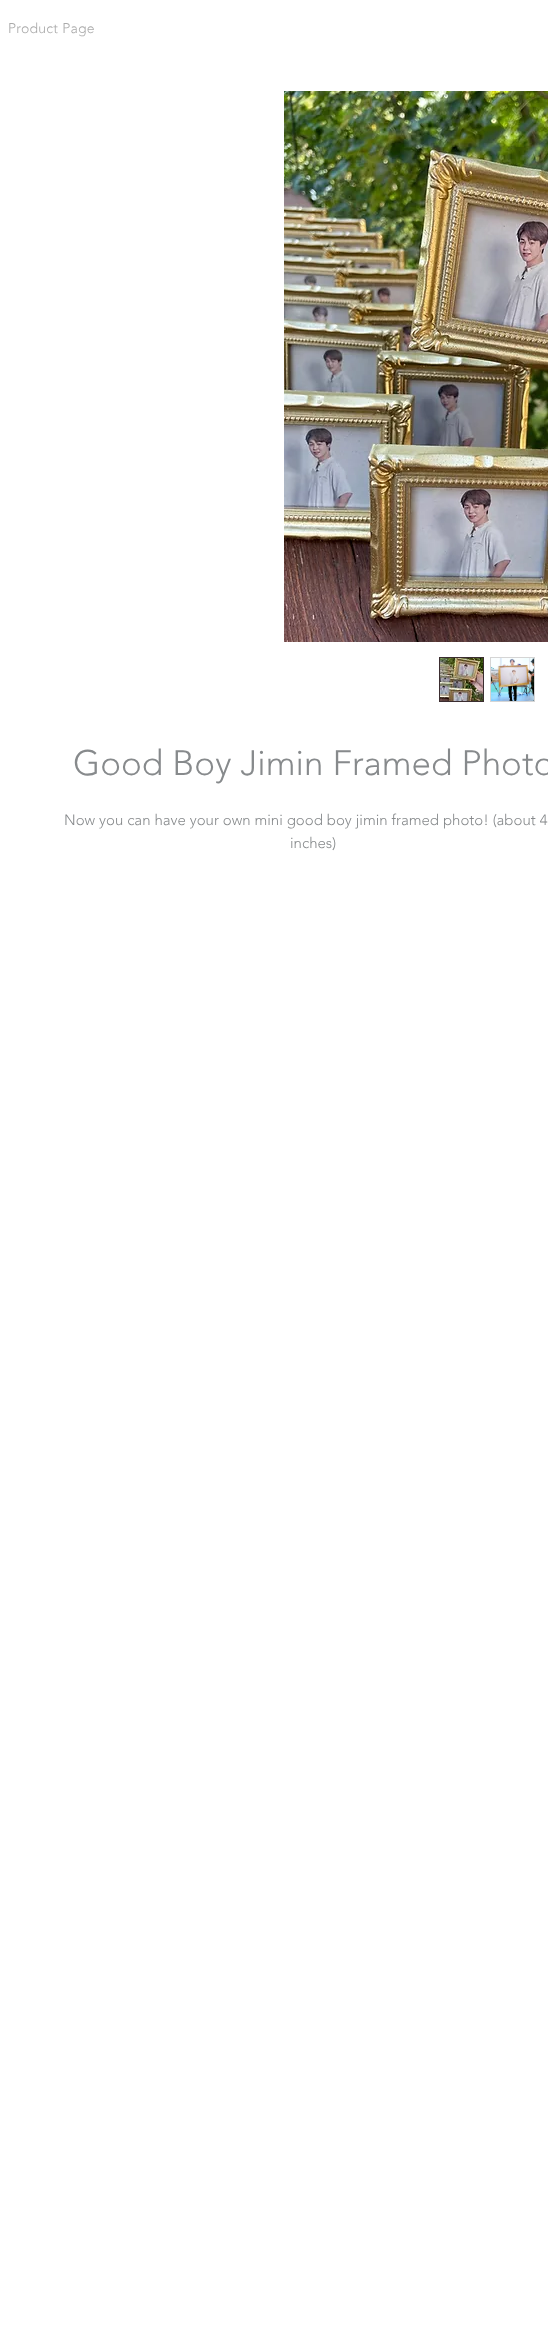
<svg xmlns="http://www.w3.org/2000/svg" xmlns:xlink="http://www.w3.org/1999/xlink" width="548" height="2332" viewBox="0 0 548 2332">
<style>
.cls-1{font:300 14px 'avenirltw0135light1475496';letter-spacing:0.25px;fill:#aaaaaa}
.cls-2{font:300 35px 'avenirltw0135light1475496';fill:#878a8c}
.cls-3{font:300 15px 'avenirltw0135light1475496';fill:#878a8c}
</style>
<rect width="100%" height="100%" fill="#ffffff"/>
<image xlink:href="image0.png" x="284" y="91" width="264" height="551"/>
<rect fill="none" stroke="#3b2d30" x="439.5" y="657.5" width="44" height="44"/>
<image xlink:href="image1.png" x="440" y="658" width="43" height="43"/>
<rect fill="#d5d5d5" x="490" y="657" width="45" height="45"/>
<image xlink:href="image2.png" x="491" y="658" width="43" height="43"/>
<text class="cls-1" x="8" y="33">Product Page</text>
<text class="cls-2" x="73" y="775">Good Boy Jimin Framed Photo</text>
<text class="cls-3" x="64" y="825">Now you can have your own mini good boy jimin framed photo! (about 4</text>
<text class="cls-3" x="290" y="848">inches)</text>
</svg>
